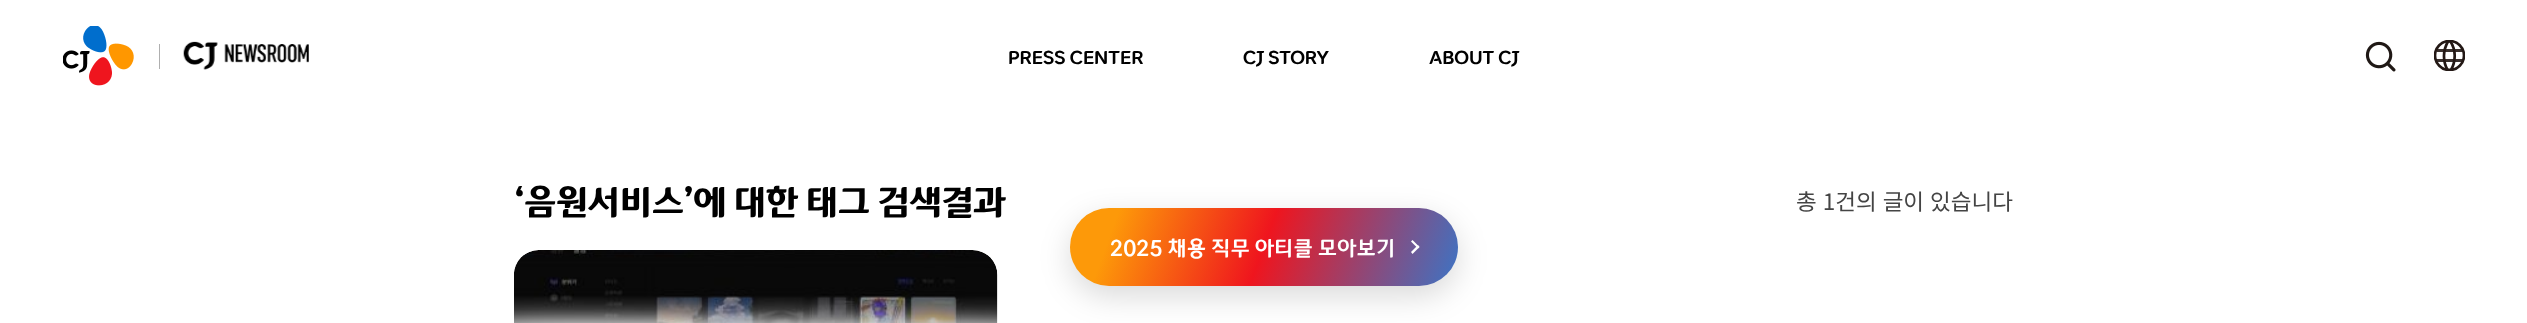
<svg xmlns="http://www.w3.org/2000/svg" xmlns:xlink="http://www.w3.org/1999/xlink" width="2527" height="323" viewBox="0 0 2527 323">
<style>
.cls-1{font:bold 17.5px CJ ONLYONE;fill:#000000}
.cls-2{font:bold 35px CJ ONLYONE;fill:#000000}
.cls-3{font:22.5px Noto Sans KR;fill:#444444}
.cls-4{font:600 21.25px CJ ONLYONE;fill:#ffffff}
</style>
<defs>
<clipPath id="clip1"><rect x="2434" y="40" width="31" height="31"/></clipPath>
<linearGradient id="g1" gradientUnits="userSpaceOnUse" x1="1080" y1="180" x2="1447" y2="314"><stop offset="0.12" stop-color="#fd9909"/><stop offset="0.5" stop-color="#ef151e"/><stop offset="1" stop-color="#3c74c5"/></linearGradient>
</defs>
<rect width="100%" height="100%" fill="#ffffff"/>
<image xlink:href="image0.png" x="63" y="26" width="71" height="60"/>
<image xlink:href="image1.png" x="183" y="41" width="126" height="29"/>
<rect fill="#afafaf" x="159" y="44" width="1" height="25"/>
<image xlink:href="image2.png" x="2365" y="41" width="31" height="31"/>
<g clip-path="url(#clip1)">
<circle fill="none" stroke="#231815" stroke-width="2.7" cx="2449.5" cy="55.5" r="14.5"/>
<path fill="none" stroke="#231815" stroke-width="2.7" d="M2448 41.5C2443 50 2442.5 61 2447.5 70H2451C2456 61 2456 50 2450.5 41.5Z"/>
</g>
<rect fill="#231815" fill-opacity="0.9" x="2437" y="49" width="27" height="3"/>
<rect fill="#231815" fill-opacity="0.9" x="2437" y="59" width="27" height="3"/>
<image xlink:href="image3.png" x="514" y="250" width="484" height="73"/>
<rect fill="#000000" fill-opacity="0.15" filter="blur(15.5px)" x="1070" y="218" width="388" height="78" rx="39"/>
<rect fill="url(#g1)" x="1070" y="208" width="388" height="78" rx="39"/>
<path fill="#ffffff" d="M1411 241.5L1412.5 240L1419.5 247L1418 248.5Z"/>
<path fill="#ffffff" d="M1411 252L1418 245L1419.5 247L1412.5 254Z"/>
<text class="cls-1" x="1008" y="64">PRESS CENTER</text>
<text class="cls-1" x="1243" y="64">CJ STORY</text>
<text class="cls-1" x="1429" y="64">ABOUT CJ</text>
<text class="cls-2" x="514" y="215">‘음원서비스’에 대한 태그 검색결과</text>
<text class="cls-3" x="1796" y="210" word-spacing="1">총 1건의 글이 있습니다</text>
<text class="cls-4" x="1110" y="256">2025 채용 직무 아티클 모아보기</text>
</svg>
